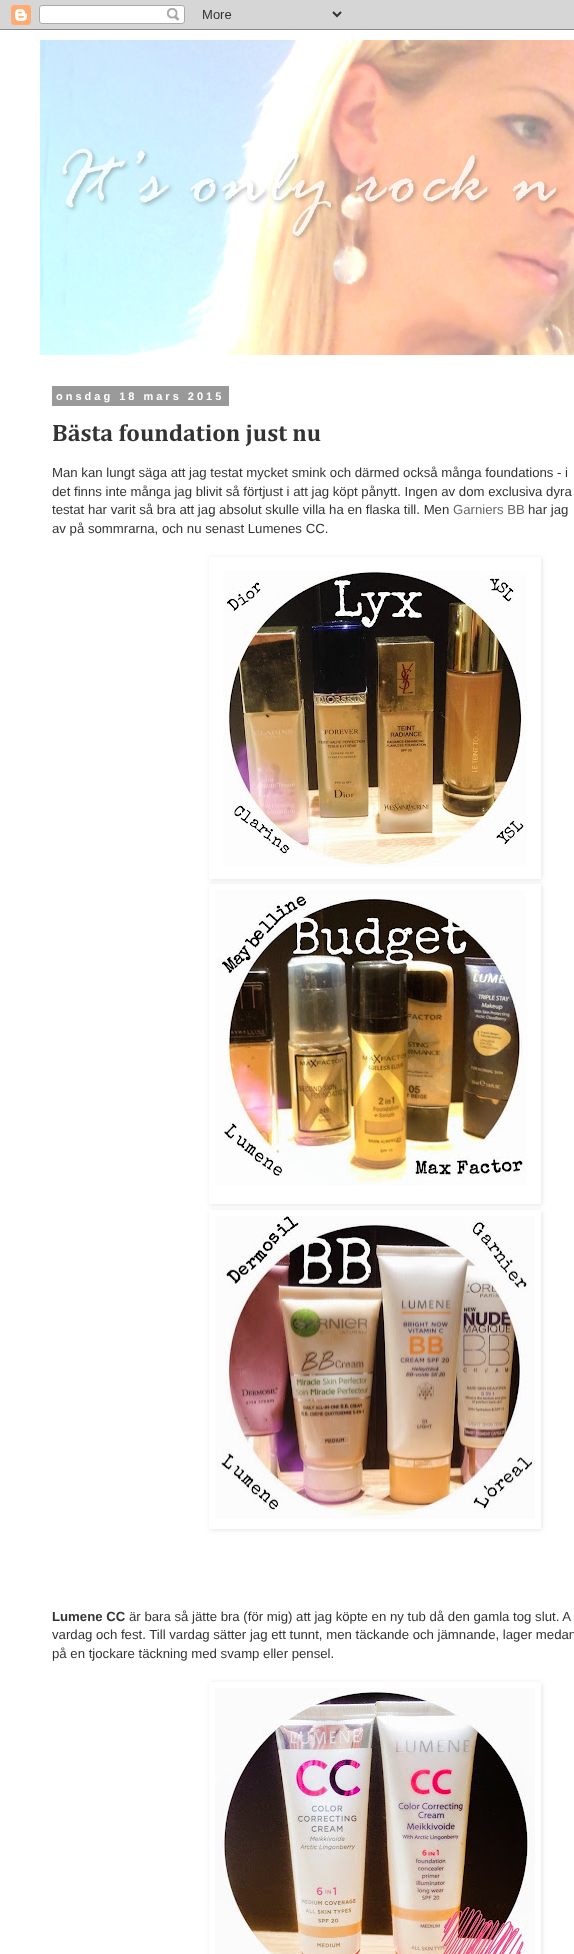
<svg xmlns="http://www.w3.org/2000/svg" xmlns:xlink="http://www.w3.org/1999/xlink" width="574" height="1954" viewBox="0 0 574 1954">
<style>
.cls-1{font:bold 11px Liberation Sans;letter-spacing:3px;fill:#ffffff}
.cls-2{font:bold 24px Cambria;fill:#333333}
.cls-3{font:13.2px Liberation Sans;fill:#333333}
.cls-4{font:13.2px Liberation Sans;fill:#666666}
.cls-5{font:bold 13.2px Liberation Sans;fill:#333333}
</style>
<defs>
<clipPath id="clip1"><path d="M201 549H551V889H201ZM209 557H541V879H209Z" clip-rule="evenodd"/></clipPath>
<clipPath id="clip2"><path d="M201 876H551V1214H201ZM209 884H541V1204H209Z" clip-rule="evenodd"/></clipPath>
<clipPath id="clip3"><path d="M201 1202H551V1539H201ZM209 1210H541V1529H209Z" clip-rule="evenodd"/></clipPath>
<clipPath id="clip4"><path d="M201 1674H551V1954H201ZM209 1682H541V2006H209Z" clip-rule="evenodd"/></clipPath>
</defs>
<rect width="100%" height="100%" fill="#bbbbbb"/>
<image xlink:href="image0.png" x="0" y="0" width="574" height="30"/>
<rect fill="#ffffff" x="0" y="30" width="574" height="1924"/>
<image xlink:href="image1.png" x="40" y="40" width="534" height="315"/>
<rect fill="#999999" x="52" y="386" width="177" height="20"/>
<g clip-path="url(#clip1)">
<rect fill="#000000" fill-opacity="0.1" filter="blur(2.5px)" x="210" y="558" width="332" height="322"/>
</g>
<image xlink:href="image2.png" x="223" y="571" width="304" height="296"/>
<g clip-path="url(#clip2)">
<rect fill="#000000" fill-opacity="0.1" filter="blur(2.5px)" x="210" y="885" width="332" height="320"/>
</g>
<image xlink:href="image3.png" x="215" y="890" width="312" height="296"/>
<g clip-path="url(#clip3)">
<rect fill="#000000" fill-opacity="0.1" filter="blur(2.5px)" x="210" y="1211" width="332" height="319"/>
</g>
<image xlink:href="image4.png" x="215" y="1216" width="320" height="303"/>
<g clip-path="url(#clip4)">
<rect fill="#000000" fill-opacity="0.1" filter="blur(2.5px)" x="210" y="1683" width="332" height="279"/>
</g>
<image xlink:href="image5.png" x="215" y="1688" width="320" height="266"/>
<text class="cls-1" x="56" y="400">onsdag 18 mars 2015</text>
<text class="cls-2" x="52" y="441">Bästa foundation just nu</text>
<text class="cls-3"><tspan x="52" y="477">Man kan lungt säga att jag testat mycket smink och därmed också många foundations - i</tspan><tspan x="52" y="496">det finns inte många jag blivit så förtjust i att jag köpt pånytt. Ingen av dom exclusiva dyra</tspan><tspan x="52" y="514">testat har varit så bra att jag absolut skulle villa ha en flaska till. Men</tspan></text>
<text class="cls-4" x="453" y="514">Garniers BB</text>
<text class="cls-3" x="528" y="514">har jag</text>
<text class="cls-3" x="52" y="533">av på sommrarna, och nu senast Lumenes CC.</text>
<text class="cls-5" x="52" y="1621">Lumene CC</text>
<text class="cls-3" x="129" y="1621">är bara så jätte bra (för mig) att jag köpte en ny tub då den gamla tog slut. A</text>
<text class="cls-3"><tspan x="52" y="1639">vardag och fest. Till vardag sätter jag ett tunnt, men täckande och jämnande, lager medan</tspan><tspan x="52" y="1658">på en tjockare täckning med svamp eller pensel.</tspan></text>
</svg>
